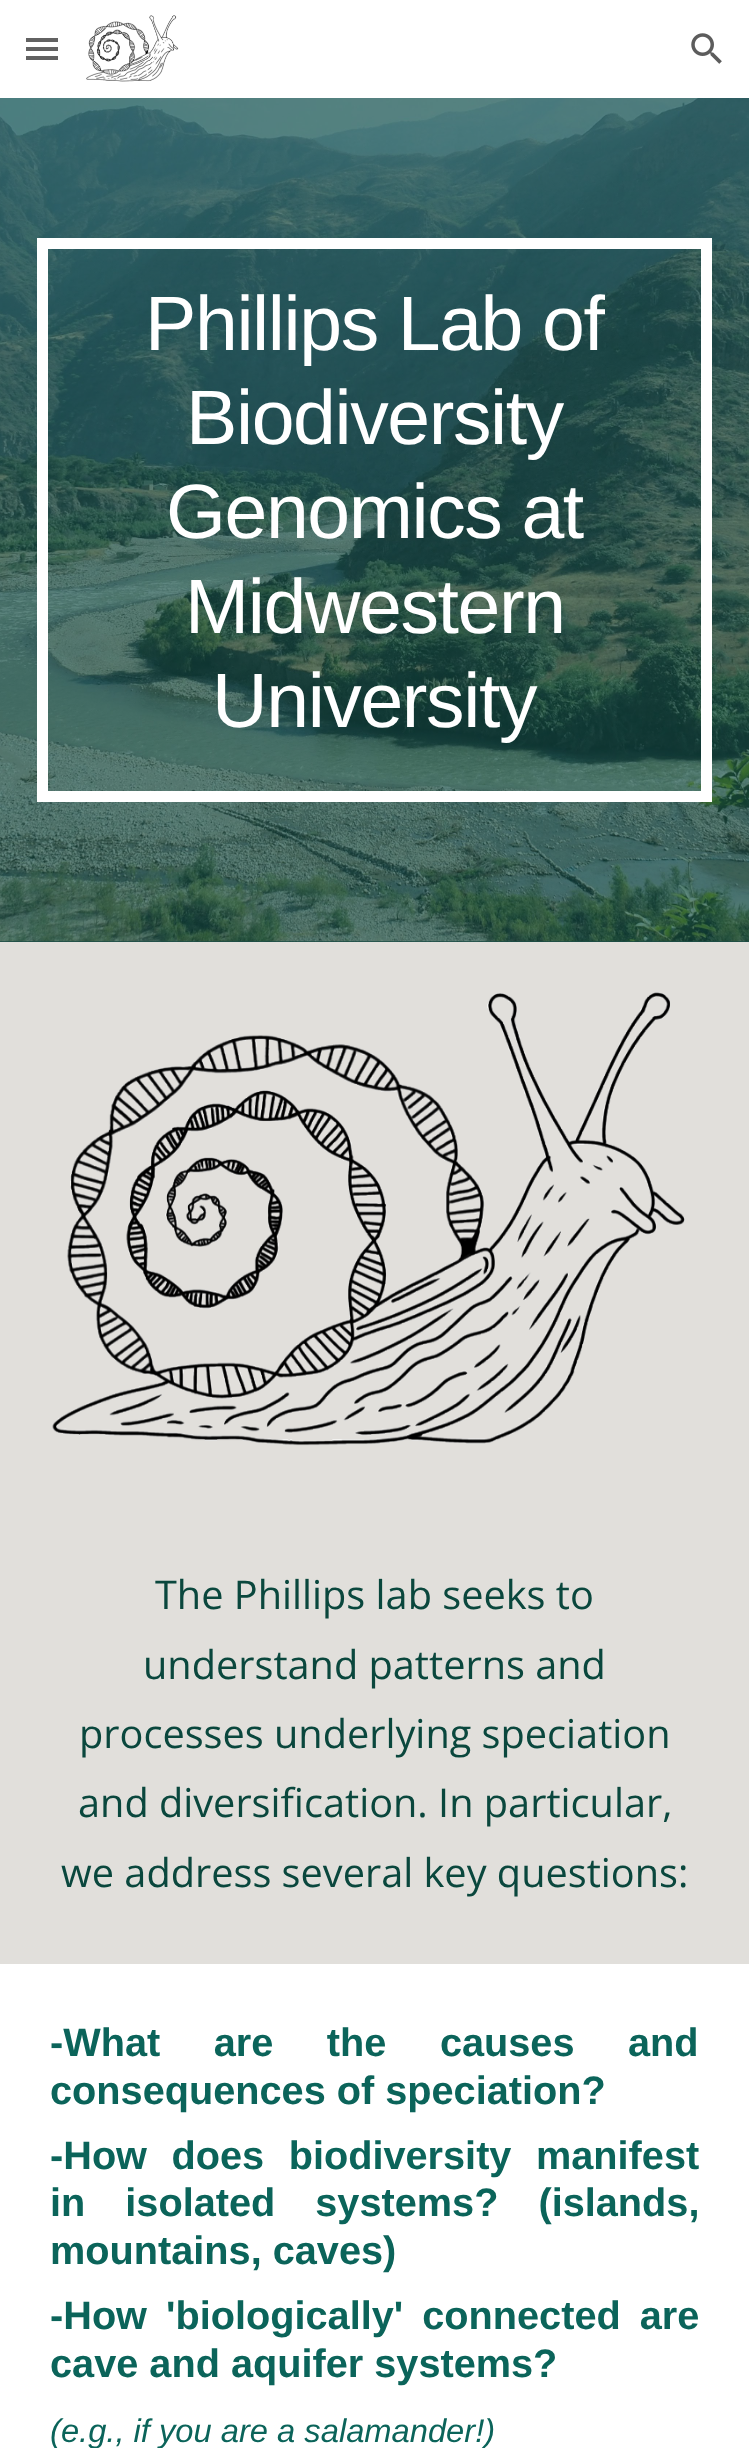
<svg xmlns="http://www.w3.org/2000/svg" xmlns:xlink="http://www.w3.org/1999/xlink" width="749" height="2448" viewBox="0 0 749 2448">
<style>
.cls-1{font:77px Liberation Sans;letter-spacing:-1.4px;fill:#ffffff}
.cls-2{font:39.7px Open Sans;fill:#0a473d}
.cls-3{font:bold 39.7px Liberation Sans;fill:#0b645a}
.cls-4{font:italic 32.7px Liberation Sans;fill:#0b645a}
</style>
<rect width="100%" height="100%" fill="#ffffff"/>
<rect fill="#4d4d4d" x="26" y="38" width="32" height="4"/>
<rect fill="#4d4d4d" x="26" y="47" width="32" height="4"/>
<rect fill="#4d4d4d" x="26" y="56" width="32" height="4"/>
<rect fill="#ffffff" fill-opacity="0.12" x="26" y="38" width="32" height="22"/>
<image xlink:href="image0.png" x="86" y="15" width="93" height="67"/>
<image xlink:href="image1.png" x="691" y="33" width="31" height="31"/>
<rect fill="#1b4c46" x="0" y="941" width="749" height="1"/>
<image xlink:href="image2.png" x="0" y="98" width="749" height="844"/>
<rect fill="none" stroke="#ffffff" stroke-width="11" x="42.5" y="243.5" width="664" height="553"/>
<rect fill="#e1dfdb" x="0" y="942" width="749" height="1022"/>
<image xlink:href="image3.png" x="52" y="992" width="633" height="454"/>
<text class="cls-1" x="145" y="350">Phillips Lab of</text>
<text class="cls-1" x="186" y="444">Biodiversity</text>
<text class="cls-1" x="166" y="538">Genomics at</text>
<text class="cls-1" x="185" y="633">Midwestern</text>
<text class="cls-1" x="212" y="727">University</text>
<text class="cls-2" x="155" y="1609">The Phillips lab seeks to</text>
<text class="cls-2" x="143" y="1679">understand patterns and</text>
<text class="cls-2" x="79" y="1748">processes underlying speciation</text>
<text class="cls-2" x="78" y="1817">and diversification. In particular,</text>
<text class="cls-2" x="61" y="1887">we address several key questions:</text>
<text class="cls-3"><tspan x="50" y="2056" word-spacing="42.5">-What are the causes and</tspan><tspan x="50" y="2104">consequences of speciation?</tspan><tspan x="50" y="2169" word-spacing="13.5">-How does biodiversity manifest</tspan><tspan x="50" y="2216" word-spacing="29">in isolated systems? (islands,</tspan><tspan x="50" y="2264">mountains, caves)</tspan><tspan x="50" y="2329" word-spacing="8">-How 'biologically' connected are</tspan><tspan x="50" y="2377">cave and aquifer systems?</tspan></text>
<text class="cls-4" x="50" y="2442">(e.g., if you are a salamander!)</text>
</svg>
